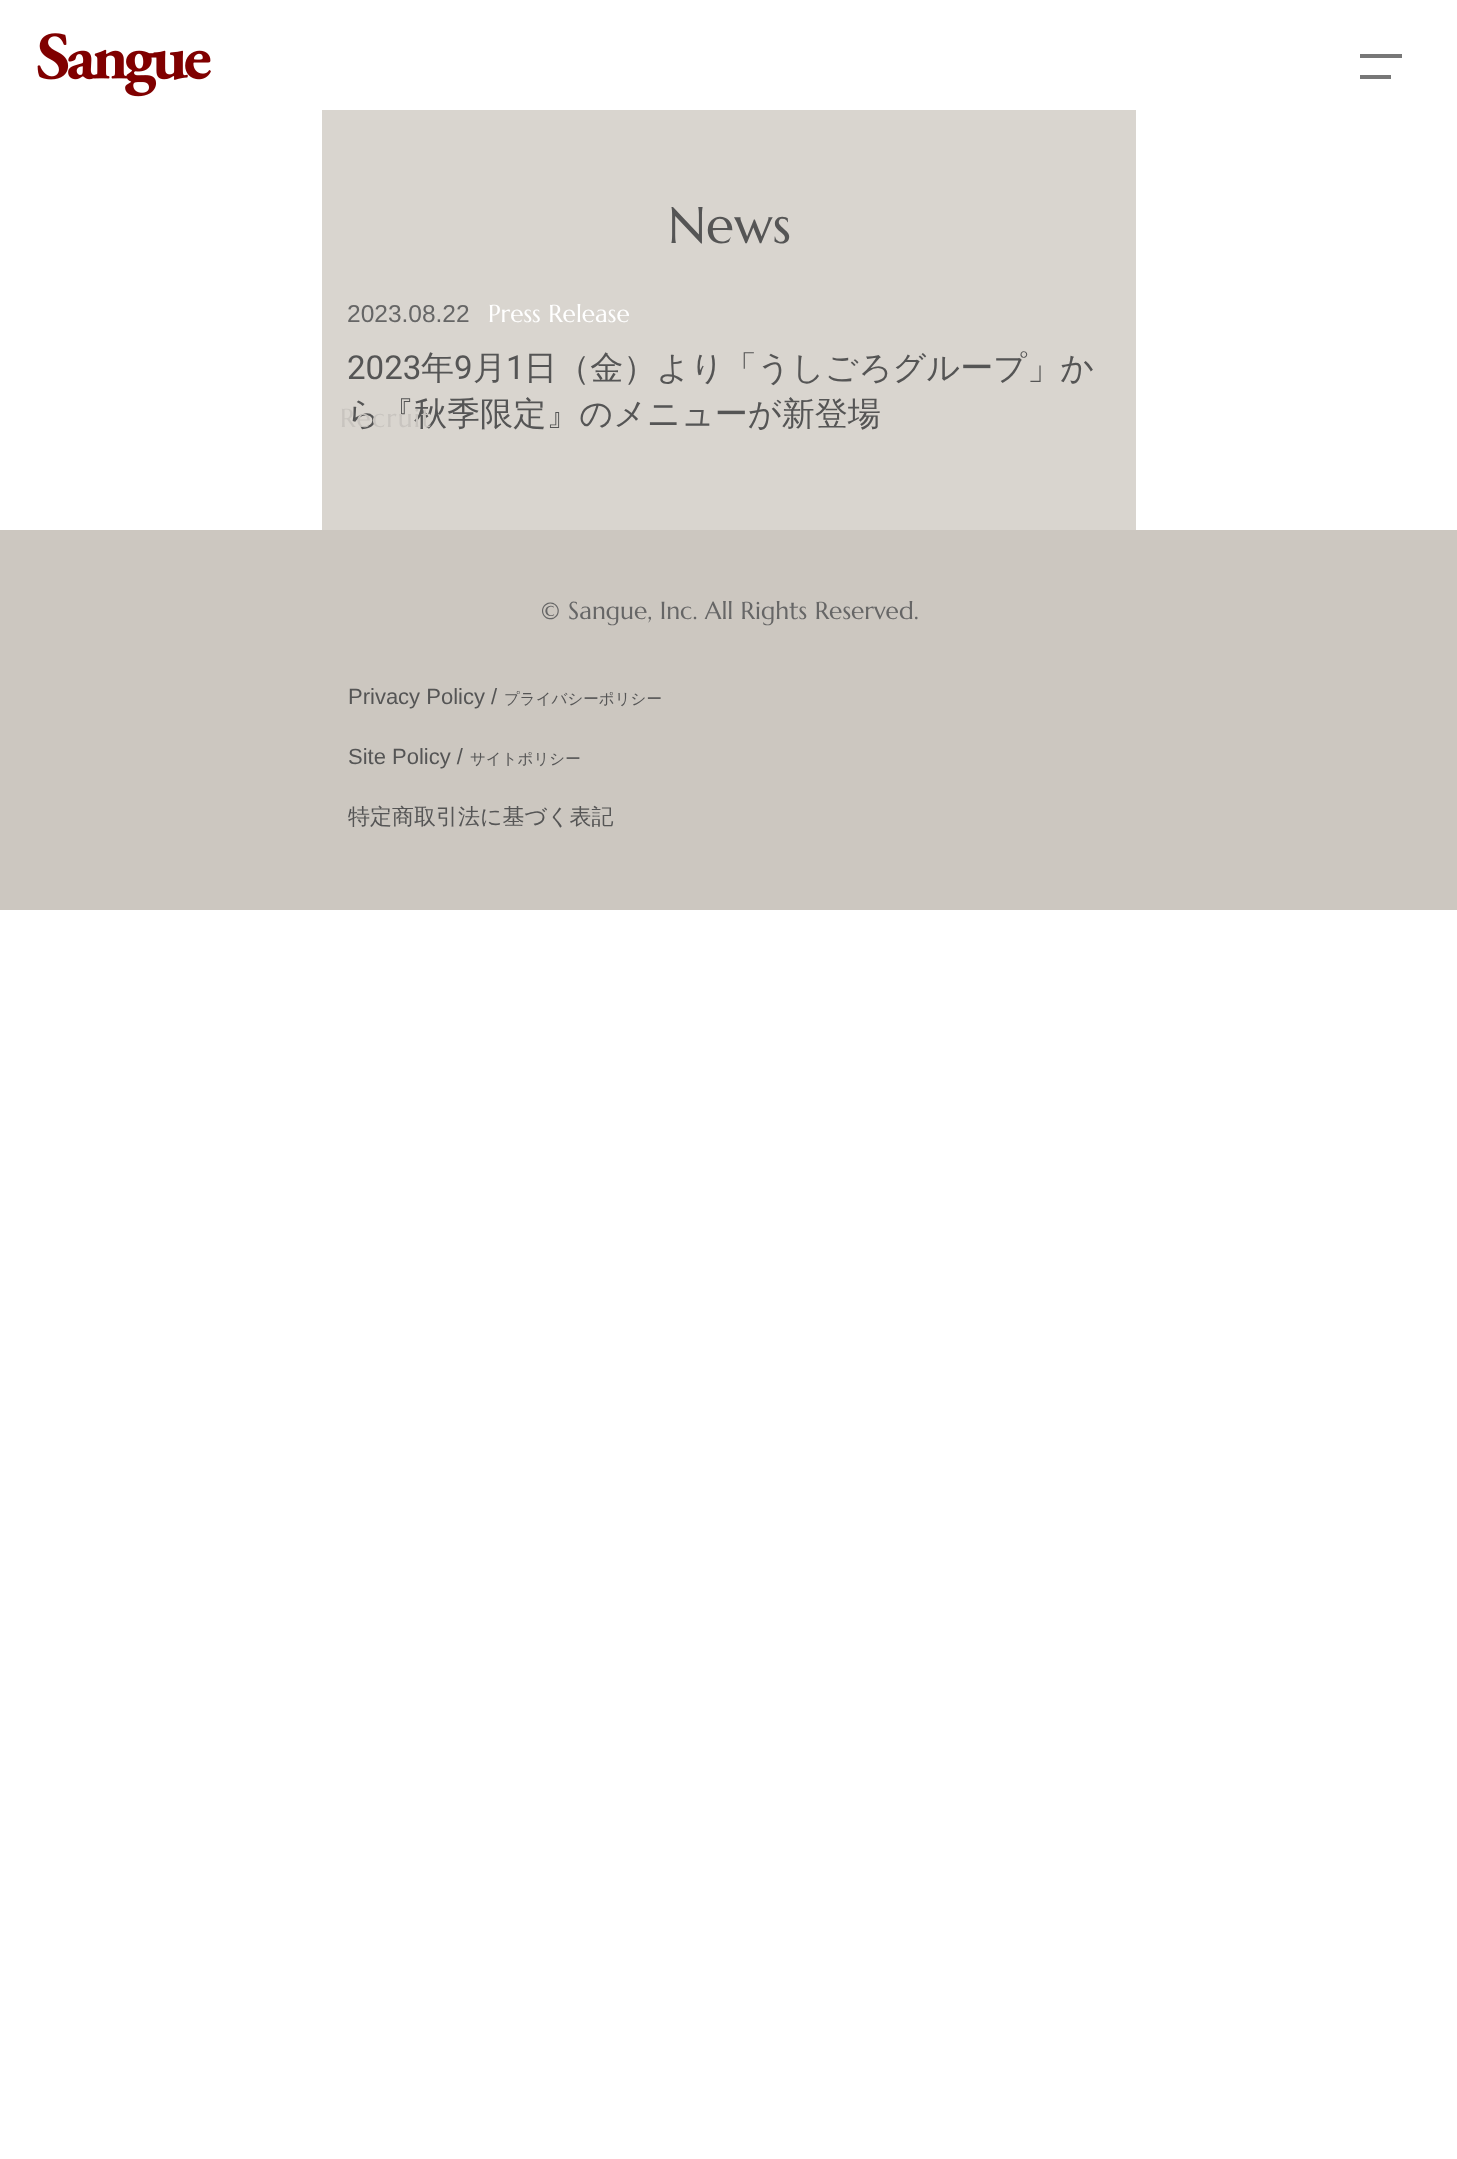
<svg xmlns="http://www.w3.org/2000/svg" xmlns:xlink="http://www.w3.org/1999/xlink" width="1457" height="2159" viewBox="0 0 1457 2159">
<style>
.cls-1{font:51.5px Marcellus;fill:#555555}
.cls-2{font:24.5px Liberation Sans;fill:#666666}
.cls-3{font:24.5px Marcellus;fill:#ffffff}
.cls-4{font:33.1px Roboto;fill:#555555}
.cls-5{font:500 33.1px WenQuanYi Zen Hei;fill:#555555}
.cls-6{font:26px Marcellus;letter-spacing:1.25px;fill:#c8c4bf}
.cls-7{font:24.5px Marcellus;fill:#666666}
.cls-8{font:22px Liberation Sans;fill:#555555}
.cls-9{font:500 15.5px WenQuanYi Zen Hei;fill:#555555}
.cls-10{font:500 22px WenQuanYi Zen Hei;fill:#555555}
</style>
<rect width="100%" height="100%" fill="#ffffff"/>
<rect fill="#d9d5cf" x="322" y="110" width="814" height="420"/>
<image xlink:href="image0.png" x="37" y="33" width="174" height="64"/>
<rect fill="#777777" x="1360" y="54" width="42" height="4"/>
<rect fill="#777777" x="1360" y="75" width="31" height="4"/>
<rect fill="#ccc7c0" x="0" y="530" width="1457" height="380"/>
<text class="cls-1" x="668" y="243">News</text>
<text class="cls-2" x="347" y="322">2023.08.22</text>
<text class="cls-3" x="488" y="322">Press Release</text>
<text class="cls-4" x="347" y="379">2023</text>
<text class="cls-5" x="421" y="379">年</text>
<text class="cls-4" x="454" y="379">9</text>
<text class="cls-5" x="473" y="379">月</text>
<text class="cls-4" x="506" y="379">1</text>
<text class="cls-5" x="524" y="379">日（金）より「うしごろグループ」か</text>
<text class="cls-5" x="347" y="425">ら『秋季限定』のメニューが新登場</text>
<text class="cls-6" x="340" y="427">Recruit</text>
<text class="cls-7" x="540" y="619">© Sangue, Inc. All Rights Reserved.</text>
<text class="cls-8" x="348" y="704">Privacy Policy /</text>
<text class="cls-9" x="504" y="704">プライバシーポリシー</text>
<text class="cls-8" x="348" y="764">Site Policy /</text>
<text class="cls-9" x="470" y="764">サイトポリシー</text>
<text class="cls-10" x="348" y="824">特定商取引法に基づく表記</text>
</svg>
